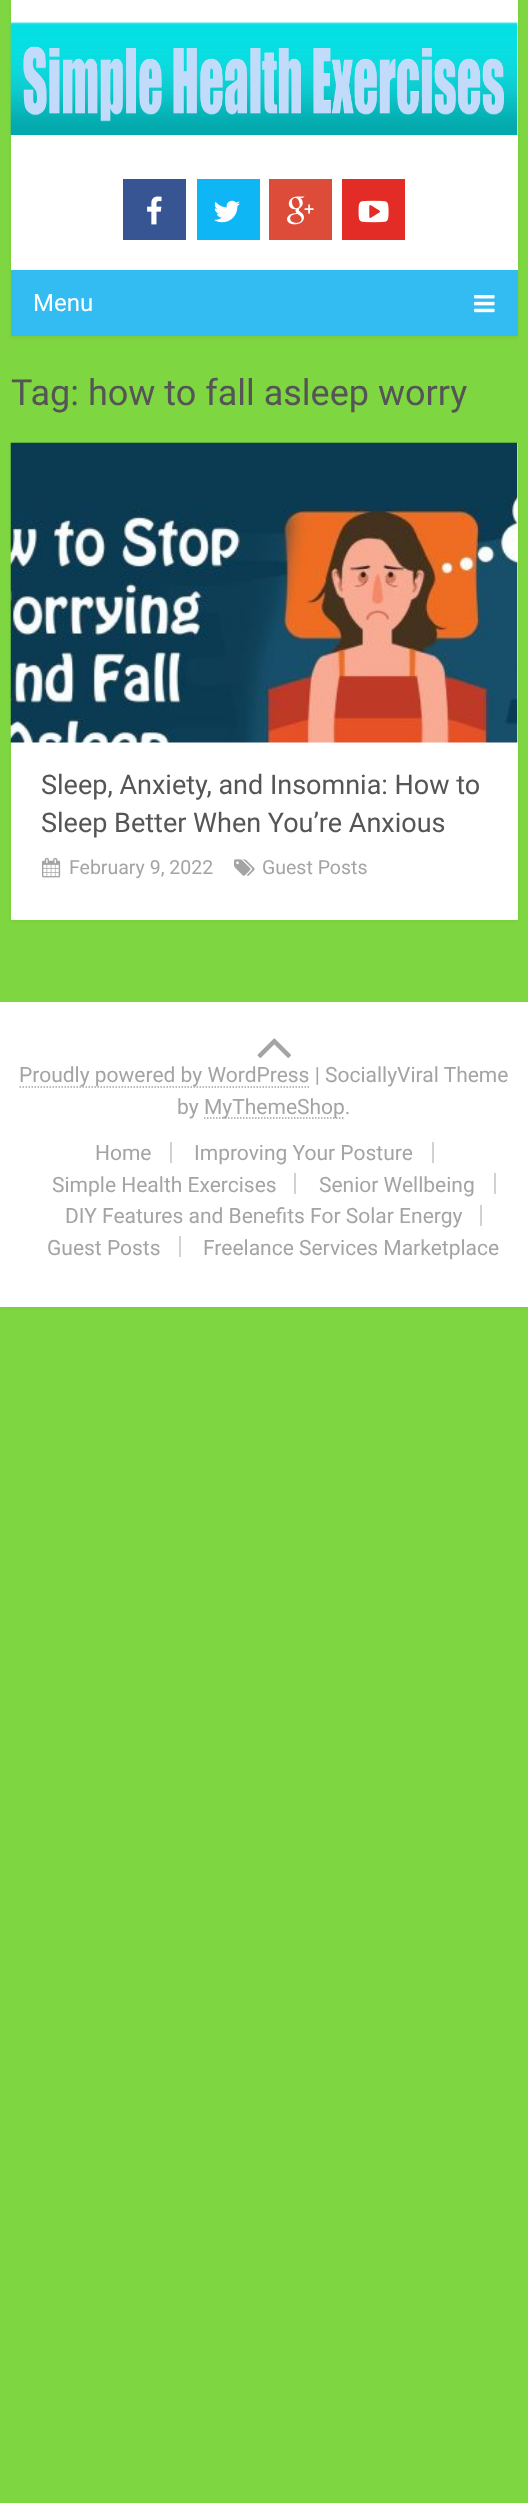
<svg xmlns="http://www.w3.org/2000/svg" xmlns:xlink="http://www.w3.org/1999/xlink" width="528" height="2503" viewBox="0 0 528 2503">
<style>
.cls-1{font:24px Roboto;fill:#ffffff}
.cls-2{font:36px Roboto;fill:#555555}
.cls-3{font:27px Roboto;fill:#555555}
.cls-4{font:19.5px Roboto;fill:#a4a4a4}
.cls-5{font:21px Roboto;fill:#a4a4a4}
</style>
<rect width="100%" height="100%" fill="#7ed640"/>
<rect fill="#000000" fill-opacity="0.05" filter="blur(1.5px)" x="11" y="2" width="507" height="336"/>
<rect fill="#ffffff" x="11" y="0" width="507" height="270"/>
<image xlink:href="image0.png" x="10" y="22" width="508" height="113"/>
<rect fill="#375593" x="123" y="179" width="63" height="61"/>
<image xlink:href="image1.png" x="147" y="196" width="15" height="29"/>
<rect fill="#0eb6f6" x="197" y="179" width="63" height="61"/>
<image xlink:href="image2.png" x="214" y="200" width="26" height="23"/>
<rect fill="#dd4b39" x="269" y="179" width="63" height="61"/>
<image xlink:href="image3.png" x="287" y="196" width="27" height="29"/>
<rect fill="#e32c26" x="342" y="179" width="63" height="61"/>
<image xlink:href="image4.png" x="358" y="200" width="31" height="23"/>
<rect fill="#33bcf2" x="11" y="270" width="507" height="66"/>
<image xlink:href="image5.png" x="474" y="295" width="21" height="18"/>
<rect fill="#000000" fill-opacity="0.05" filter="blur(1.5px)" x="11" y="444" width="507" height="477"/>
<rect fill="#ffffff" x="11" y="443" width="507" height="477"/>
<image xlink:href="image6.png" x="10" y="442" width="508" height="301"/>
<image xlink:href="image7.png" x="42" y="857" width="19" height="21"/>
<image xlink:href="image8.png" x="234" y="859" width="21" height="17"/>
<rect fill="#000000" fill-opacity="0.05" filter="blur(1.5px)" x="0" y="1004" width="528" height="304"/>
<rect fill="#ffffff" x="0" y="1002" width="528" height="305"/>
<image xlink:href="image9.png" x="257" y="1038" width="34" height="20"/>
<path fill="none" stroke="#a4a4a4" stroke-width="1.5" stroke-dasharray="1.5 1.5" d="M19.5 1087H310.5"/>
<path fill="none" stroke="#a4a4a4" stroke-width="1.5" stroke-dasharray="1.5 1.5" d="M204 1118H345"/>
<rect fill="#d2d2d2" x="170" y="1142" width="2" height="21"/>
<rect fill="#d2d2d2" x="432" y="1142" width="2" height="21"/>
<rect fill="#d2d2d2" x="294" y="1173" width="2" height="21"/>
<rect fill="#d2d2d2" x="494" y="1173" width="2" height="21"/>
<rect fill="#d2d2d2" x="480" y="1205" width="2" height="21"/>
<rect fill="#d2d2d2" x="179" y="1236" width="2" height="21"/>
<text class="cls-1" x="33" y="311">Menu</text>
<text class="cls-2" x="11" y="405">Tag: how to fall asleep worry</text>
<text class="cls-3"><tspan x="41" y="794">Sleep, Anxiety, and Insomnia: How to</tspan><tspan x="41" y="832">Sleep Better When You’re Anxious</tspan></text>
<text class="cls-4" x="69" y="874">February 9, 2022</text>
<text class="cls-4" x="262" y="874">Guest Posts</text>
<text class="cls-5" x="19" y="1082">Proudly powered by WordPress | SociallyViral Theme</text>
<text class="cls-5" x="177" y="1114">by</text>
<text class="cls-5" x="204" y="1114">MyThemeShop.</text>
<text class="cls-5" x="95" y="1160">Home</text>
<text class="cls-5" x="194" y="1160">Improving Your Posture</text>
<text class="cls-5" x="52" y="1192">Simple Health Exercises</text>
<text class="cls-5" x="319" y="1192">Senior Wellbeing</text>
<text class="cls-5" x="65" y="1223">DIY Features and Benefits For Solar Energy</text>
<text class="cls-5" x="47" y="1255">Guest Posts</text>
<text class="cls-5" x="203" y="1255">Freelance Services Marketplace</text>
</svg>
